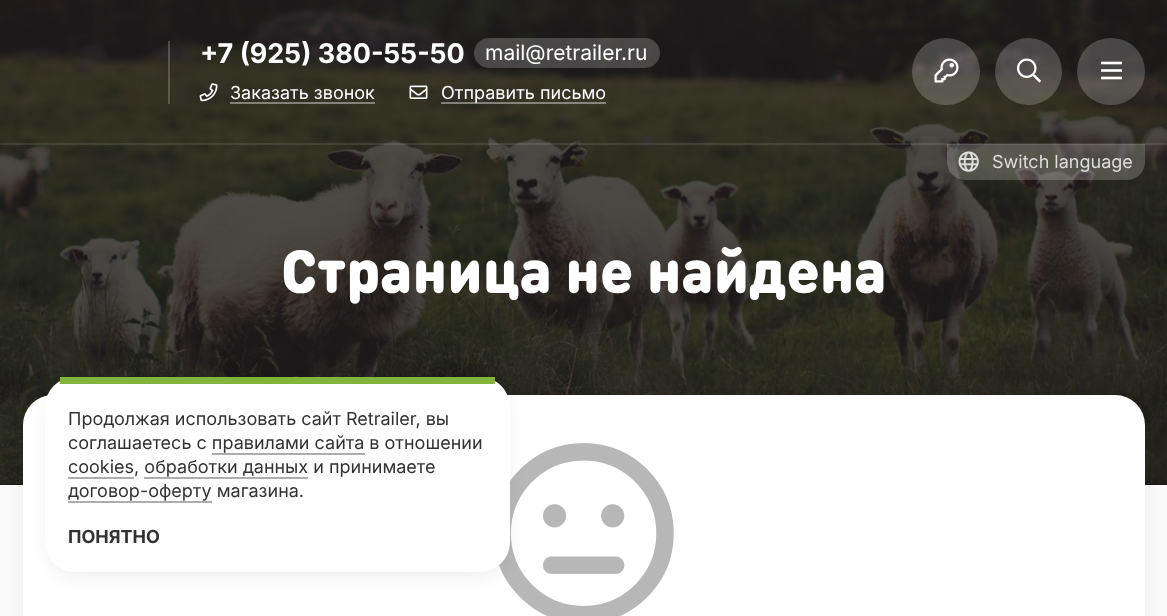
<svg xmlns="http://www.w3.org/2000/svg" xmlns:xlink="http://www.w3.org/1999/xlink" width="1167" height="616" viewBox="0 0 1167 616">
<style>
.cls-1{font:bold 27px Inter;fill:#ffffff}
.cls-2{font:21px Inter;fill:#ffffff}
.cls-3{font:18px Inter;fill:#ffffff}
.cls-4{font:18px Inter;fill:#dddddc}
.cls-5{font:900 60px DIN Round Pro;fill:#ffffff}
.cls-6{font:18px Inter;fill:#323232}
.cls-7{font:bold 18px Inter;fill:#323232}
</style>
<rect width="100%" height="100%" fill="#f9f9f9"/>
<rect fill="#191919" x="0" y="0" width="1167" height="485"/>
<image xlink:href="image6.png" x="0" y="0" width="1167" height="485"/>
<rect fill="#ffffff" fill-opacity="0.2" x="168" y="41" width="2" height="63"/>
<rect fill="#ffffff" fill-opacity="0.2" x="474" y="38" width="186" height="30" rx="15"/>
<image xlink:href="image0.png" x="199" y="83" width="19" height="19"/>
<rect fill="#ffffff" fill-opacity="0.4" x="230" y="102" width="145" height="2"/>
<image xlink:href="image1.png" x="409" y="85" width="19" height="14"/>
<rect fill="#ffffff" fill-opacity="0.4" x="441" y="102" width="165" height="2"/>
<rect fill="#ffffff" fill-opacity="0.2" x="912" y="38" width="68" height="67" rx="33.5"/>
<image xlink:href="image2.png" x="934" y="58" width="25" height="25"/>
<circle fill="#ffffff" fill-opacity="0.2" cx="1028.5" cy="71.5" r="33.5"/>
<image xlink:href="image3.png" x="1017" y="58" width="24" height="25"/>
<rect fill="#ffffff" fill-opacity="0.2" x="1077" y="38" width="68" height="67" rx="33.5"/>
<image xlink:href="image4.png" x="1101" y="61" width="21" height="19"/>
<rect fill="#ffffff" fill-opacity="0.1" x="0" y="143" width="1167" height="2"/>
<path fill="#ffffff" fill-opacity="0.2" d="M947 144H1145V162C1145 172 1137 180 1127 180H965C955 180 947 172 947 162Z"/>
<image xlink:href="image5.png" x="958" y="151" width="21" height="21"/>
<rect fill="#000000" fill-opacity="0.1" filter="blur(11px)" x="30" y="410" width="1107" height="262" rx="23"/>
<rect fill="#ffffff" x="23" y="395" width="1122" height="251" rx="30"/>
<image xlink:href="image7.png" x="499" y="443" width="175" height="173"/>
<rect fill="#000000" fill-opacity="0.1" filter="blur(11px)" x="53" y="392" width="450" height="180" rx="23"/>
<rect fill="#ffffff" x="45" y="377" width="465" height="195" rx="30"/>
<rect fill="#82b43c" x="60" y="377" width="435" height="7"/>
<rect fill="#adadad" x="212" y="453" width="153" height="2"/>
<rect fill="#adadad" x="68" y="477" width="66" height="2"/>
<rect fill="#adadad" x="144" y="477" width="164" height="2"/>
<rect fill="#adadad" x="68" y="501" width="144" height="2"/>
<text class="cls-1" x="200" y="63">+7 (925) 380-55-50</text>
<text class="cls-2" x="485" y="60">mail@retrailer.ru</text>
<text class="cls-3" x="230" y="99">Заказать звонок</text>
<text class="cls-3" x="441" y="99">Отправить письмо</text>
<text class="cls-4" x="992" y="168">Switch language</text>
<text class="cls-5" x="281" y="293">Страница не найдена</text>
<text class="cls-6"><tspan x="68" y="425">Продолжая использовать сайт Retrailer, вы</tspan><tspan x="68" y="449">соглашаетесь с правилами сайта в отношении</tspan><tspan x="68" y="473">cookies, обработки данных и принимаете</tspan><tspan x="68" y="497">договор-оферту магазина.</tspan></text>
<text class="cls-7" x="68" y="543">ПОНЯТНО</text>
</svg>
